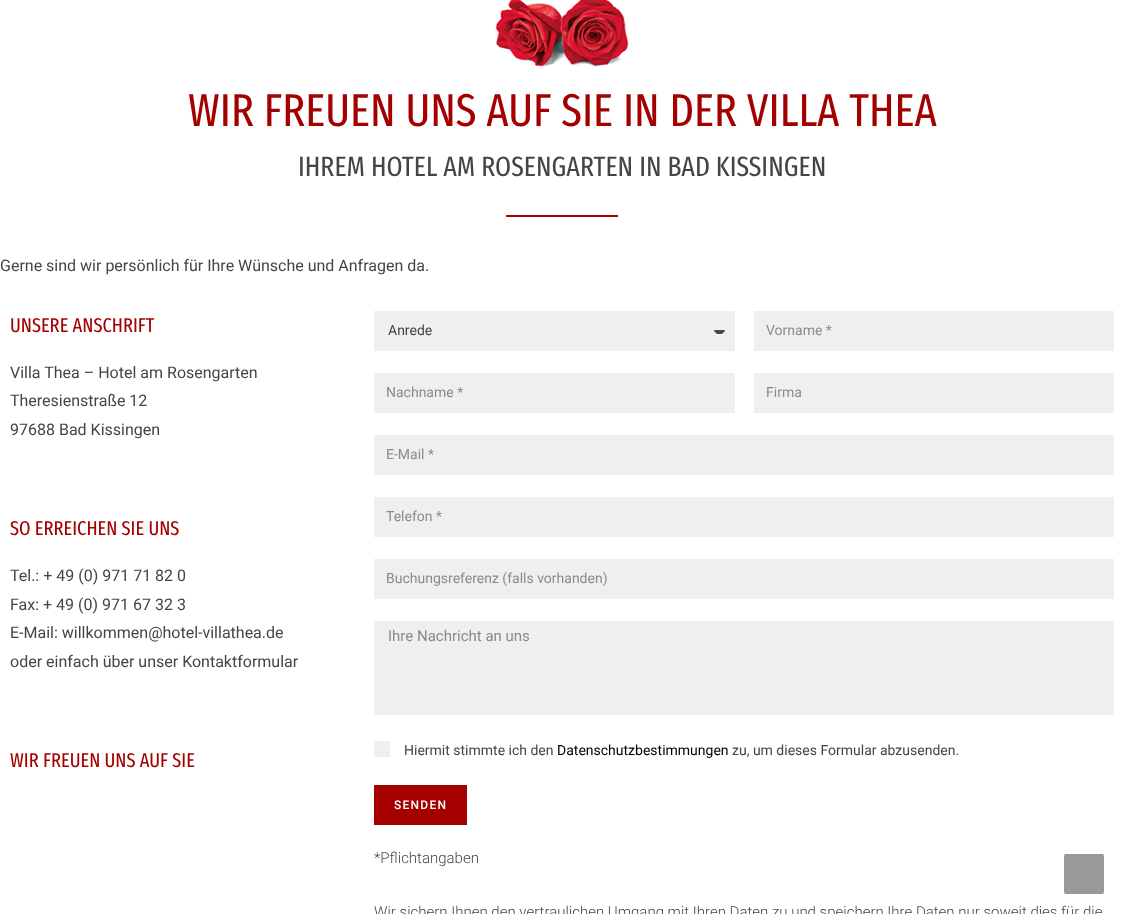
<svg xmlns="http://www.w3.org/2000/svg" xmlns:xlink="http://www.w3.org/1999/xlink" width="1124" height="914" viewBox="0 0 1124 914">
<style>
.cls-1{font:46px Fira Sans Extra Condensed;fill:#a40000}
.cls-2{font:28px Fira Sans Extra Condensed;fill:#454545}
.cls-3{font:16px Roboto;fill:#454545}
.cls-4{font:20px Fira Sans Extra Condensed;fill:#a40000}
.cls-5{font:14px Roboto;fill:#454545}
.cls-6{font:14px Roboto;fill:#8b8a8a}
.cls-7{font:15px Roboto;fill:#8b8a8a}
.cls-8{font:14px Roboto;fill:#000000}
.cls-9{font:500 12px Roboto;letter-spacing:1.25px;fill:#ffffff}
.cls-10{font:300 15px Roboto;fill:#454545}
</style>
<rect width="100%" height="100%" fill="#ffffff"/>
<image xlink:href="image0.png" x="495" y="0" width="134" height="67"/>
<rect fill="#a40000" x="506" y="215" width="112" height="2"/>
<rect fill="#f0efef" x="374" y="311" width="361" height="40"/>
<image xlink:href="image1.png" x="714" y="330" width="11" height="4"/>
<rect fill="#f0efef" x="754" y="311" width="360" height="40"/>
<rect fill="#f0efef" x="374" y="373" width="361" height="40"/>
<rect fill="#f0efef" x="754" y="373" width="360" height="40"/>
<rect fill="#f0efef" x="374" y="435" width="740" height="40"/>
<rect fill="#f0efef" x="374" y="497" width="740" height="40"/>
<rect fill="#f0efef" x="374" y="559" width="740" height="40"/>
<rect fill="#f0efef" x="374" y="621" width="740" height="94"/>
<rect fill="#f0efef" x="374" y="741" width="16" height="16"/>
<rect fill="#a40000" x="374" y="785" width="93" height="40"/>
<rect fill="#999999" x="1064" y="854" width="40" height="40" rx="2"/>
<text class="cls-1" x="188" y="126">WIR FREUEN UNS AUF SIE IN DER VILLA THEA</text>
<text class="cls-2" x="298" y="176">IHREM HOTEL AM ROSENGARTEN IN BAD KISSINGEN</text>
<text class="cls-3" x="0" y="271">Gerne sind wir persönlich für Ihre Wünsche und Anfragen da.</text>
<text class="cls-4" x="10" y="332">UNSERE ANSCHRIFT</text>
<text class="cls-3"><tspan x="10" y="378">Villa Thea – Hotel am Rosengarten</tspan><tspan x="10" y="406">Theresienstraße 12</tspan><tspan x="10" y="435">97688 Bad Kissingen</tspan></text>
<text class="cls-4" x="10" y="535">SO ERREICHEN SIE UNS</text>
<text class="cls-3"><tspan x="10" y="581">Tel.: + 49 (0) 971 71 82 0</tspan><tspan x="10" y="610">Fax: + 49 (0) 971 67 32 3</tspan><tspan x="10" y="638">E-Mail: willkommen@hotel-villathea.de</tspan><tspan x="10" y="667">oder einfach über unser Kontaktformular</tspan></text>
<text class="cls-4" x="10" y="767">WIR FREUEN UNS AUF SIE</text>
<text class="cls-5" x="388" y="335">Anrede</text>
<text class="cls-6" x="766" y="335">Vorname *</text>
<text class="cls-6" x="386" y="397">Nachname *</text>
<text class="cls-6" x="766" y="397">Firma</text>
<text class="cls-6" x="386" y="459">E-Mail *</text>
<text class="cls-6" x="386" y="521">Telefon *</text>
<text class="cls-6" x="386" y="583">Buchungsreferenz (falls vorhanden)</text>
<text class="cls-7" x="388" y="641">Ihre Nachricht an uns</text>
<text class="cls-5" x="404" y="755">Hiermit stimmte ich den</text>
<text class="cls-8" x="557" y="755">Datenschutzbestimmungen</text>
<text class="cls-5" x="732" y="755">zu, um dieses Formular abzusenden.</text>
<text class="cls-9" x="394" y="809">SENDEN</text>
<text class="cls-10" x="374" y="863">*Pflichtangaben</text>
<text class="cls-10" x="374" y="917">Wir sichern Ihnen den vertraulichen Umgang mit Ihren Daten zu und speichern Ihre Daten nur soweit dies für die</text>
</svg>
